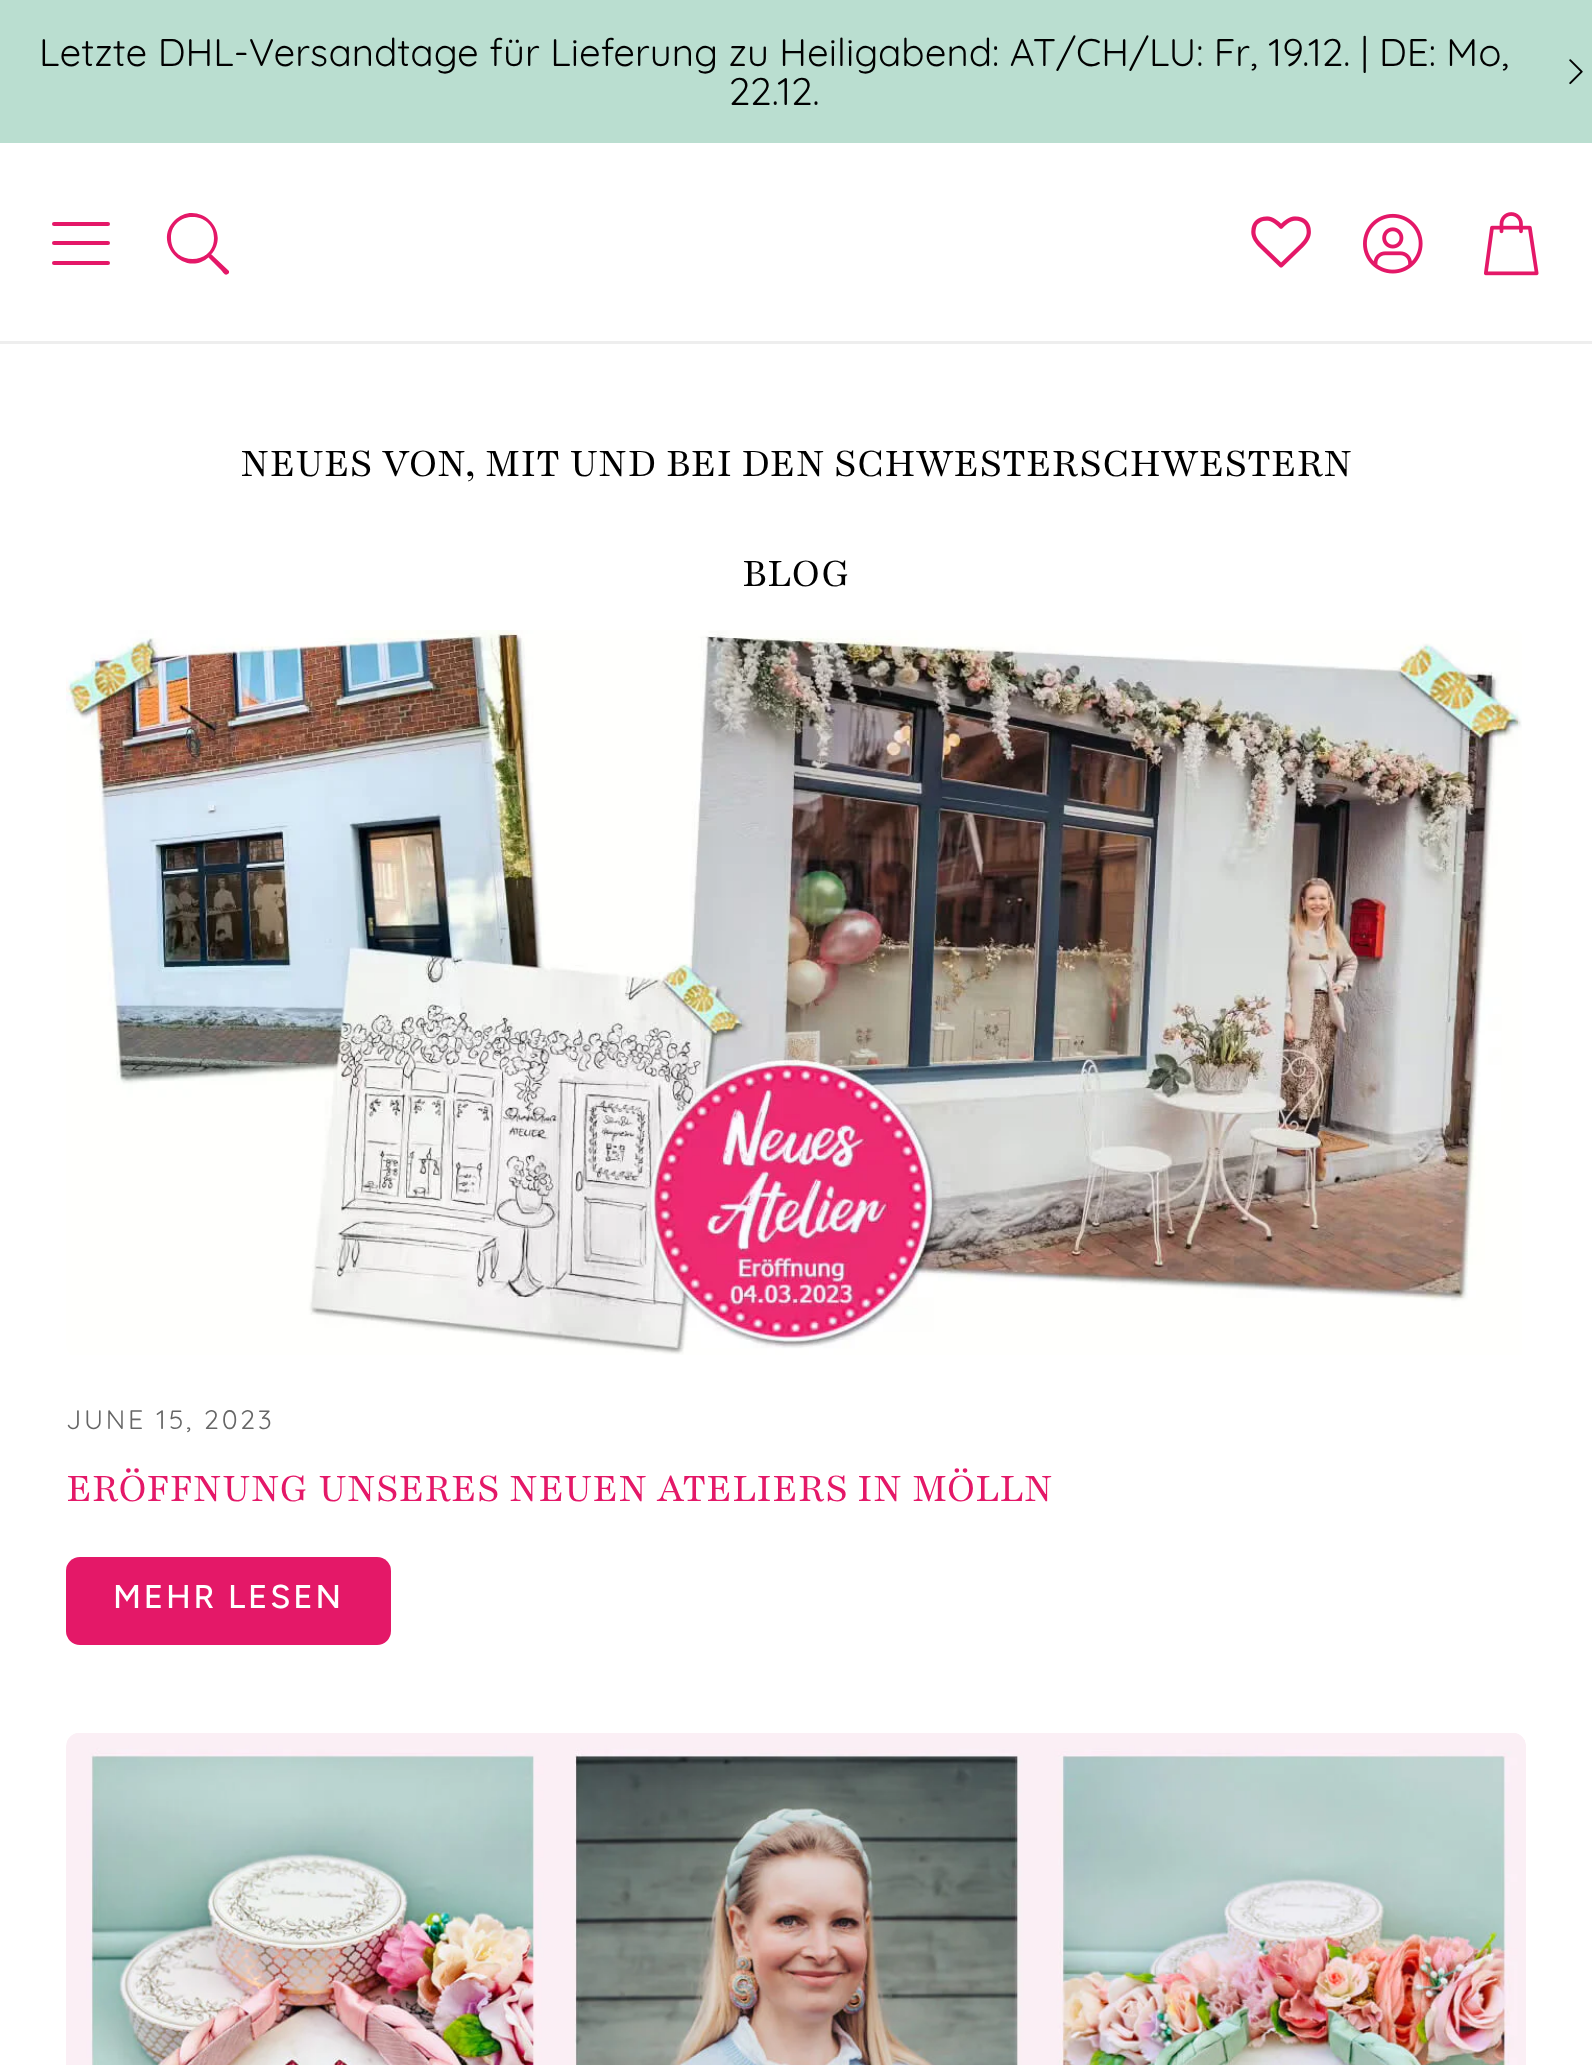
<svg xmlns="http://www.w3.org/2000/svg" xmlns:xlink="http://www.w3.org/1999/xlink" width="1592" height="2065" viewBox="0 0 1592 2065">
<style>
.cls-1{font:38.5px Quicksand;fill:#000000}
.cls-2{font:44px Playfair;fill:#000000}
.cls-3{font:26.75px Quicksand;letter-spacing:2.75px;fill:#666666}
.cls-4{font:44px Playfair;fill:#e41868}
.cls-5{font:500 33px Figtree;letter-spacing:2.75px;fill:#ffffff}
</style>
<rect width="100%" height="100%" fill="#ffffff"/>
<rect fill="#baded0" x="0" y="0" width="1592" height="143"/>
<image xlink:href="image0.png" x="1569" y="59" width="14" height="26"/>
<rect fill="#eeeeee" x="0" y="341" width="1592" height="3"/>
<rect fill="#e41868" x="52" y="222" width="58" height="4" rx="2"/>
<rect fill="#e41868" x="52" y="241" width="58" height="4" rx="2"/>
<rect fill="#e41868" x="52" y="261" width="58" height="4" rx="2"/>
<path fill="#e41868" d="M229 273C225 277 224 273 220 269L208 257C209 257 209 258 209 257C186 278 152 244 174 221C196 198 233 229 211 255C213 255 211 253 211 254L229 271C229 272 229 272 229 273ZM214 238C214 210 171 210 171 238C171 266 214 266 214 238Z"/>
<image xlink:href="image1.png" x="1251" y="216" width="60" height="52"/>
<image xlink:href="image2.png" x="1363" y="213" width="60" height="61"/>
<image xlink:href="image3.png" x="1484" y="212" width="55" height="64"/>
<image xlink:href="image4.png" x="66" y="630" width="1456" height="725"/>
<rect fill="#e41868" x="66" y="1557" width="325" height="88" rx="14"/>
<image xlink:href="image5.png" x="66" y="1733" width="1460" height="332"/>
<text class="cls-1" x="39" y="66">Letzte DHL-Versandtage für Lieferung zu Heiligabend: AT/CH/LU: Fr, 19.12. | DE: Mo,</text>
<text class="cls-1" x="729" y="105">22.12.</text>
<text class="cls-2" x="240" y="476">NEUES VON, MIT UND BEI DEN SCHWESTERSCHWESTERN</text>
<text class="cls-2" x="742" y="586">BLOG</text>
<text class="cls-3" x="66" y="1429">JUNE 15, 2023</text>
<text class="cls-4" x="66" y="1501">ERÖFFNUNG UNSERES NEUEN ATELIERS IN MÖLLN</text>
<text class="cls-5" x="113" y="1608">MEHR LESEN</text>
</svg>
